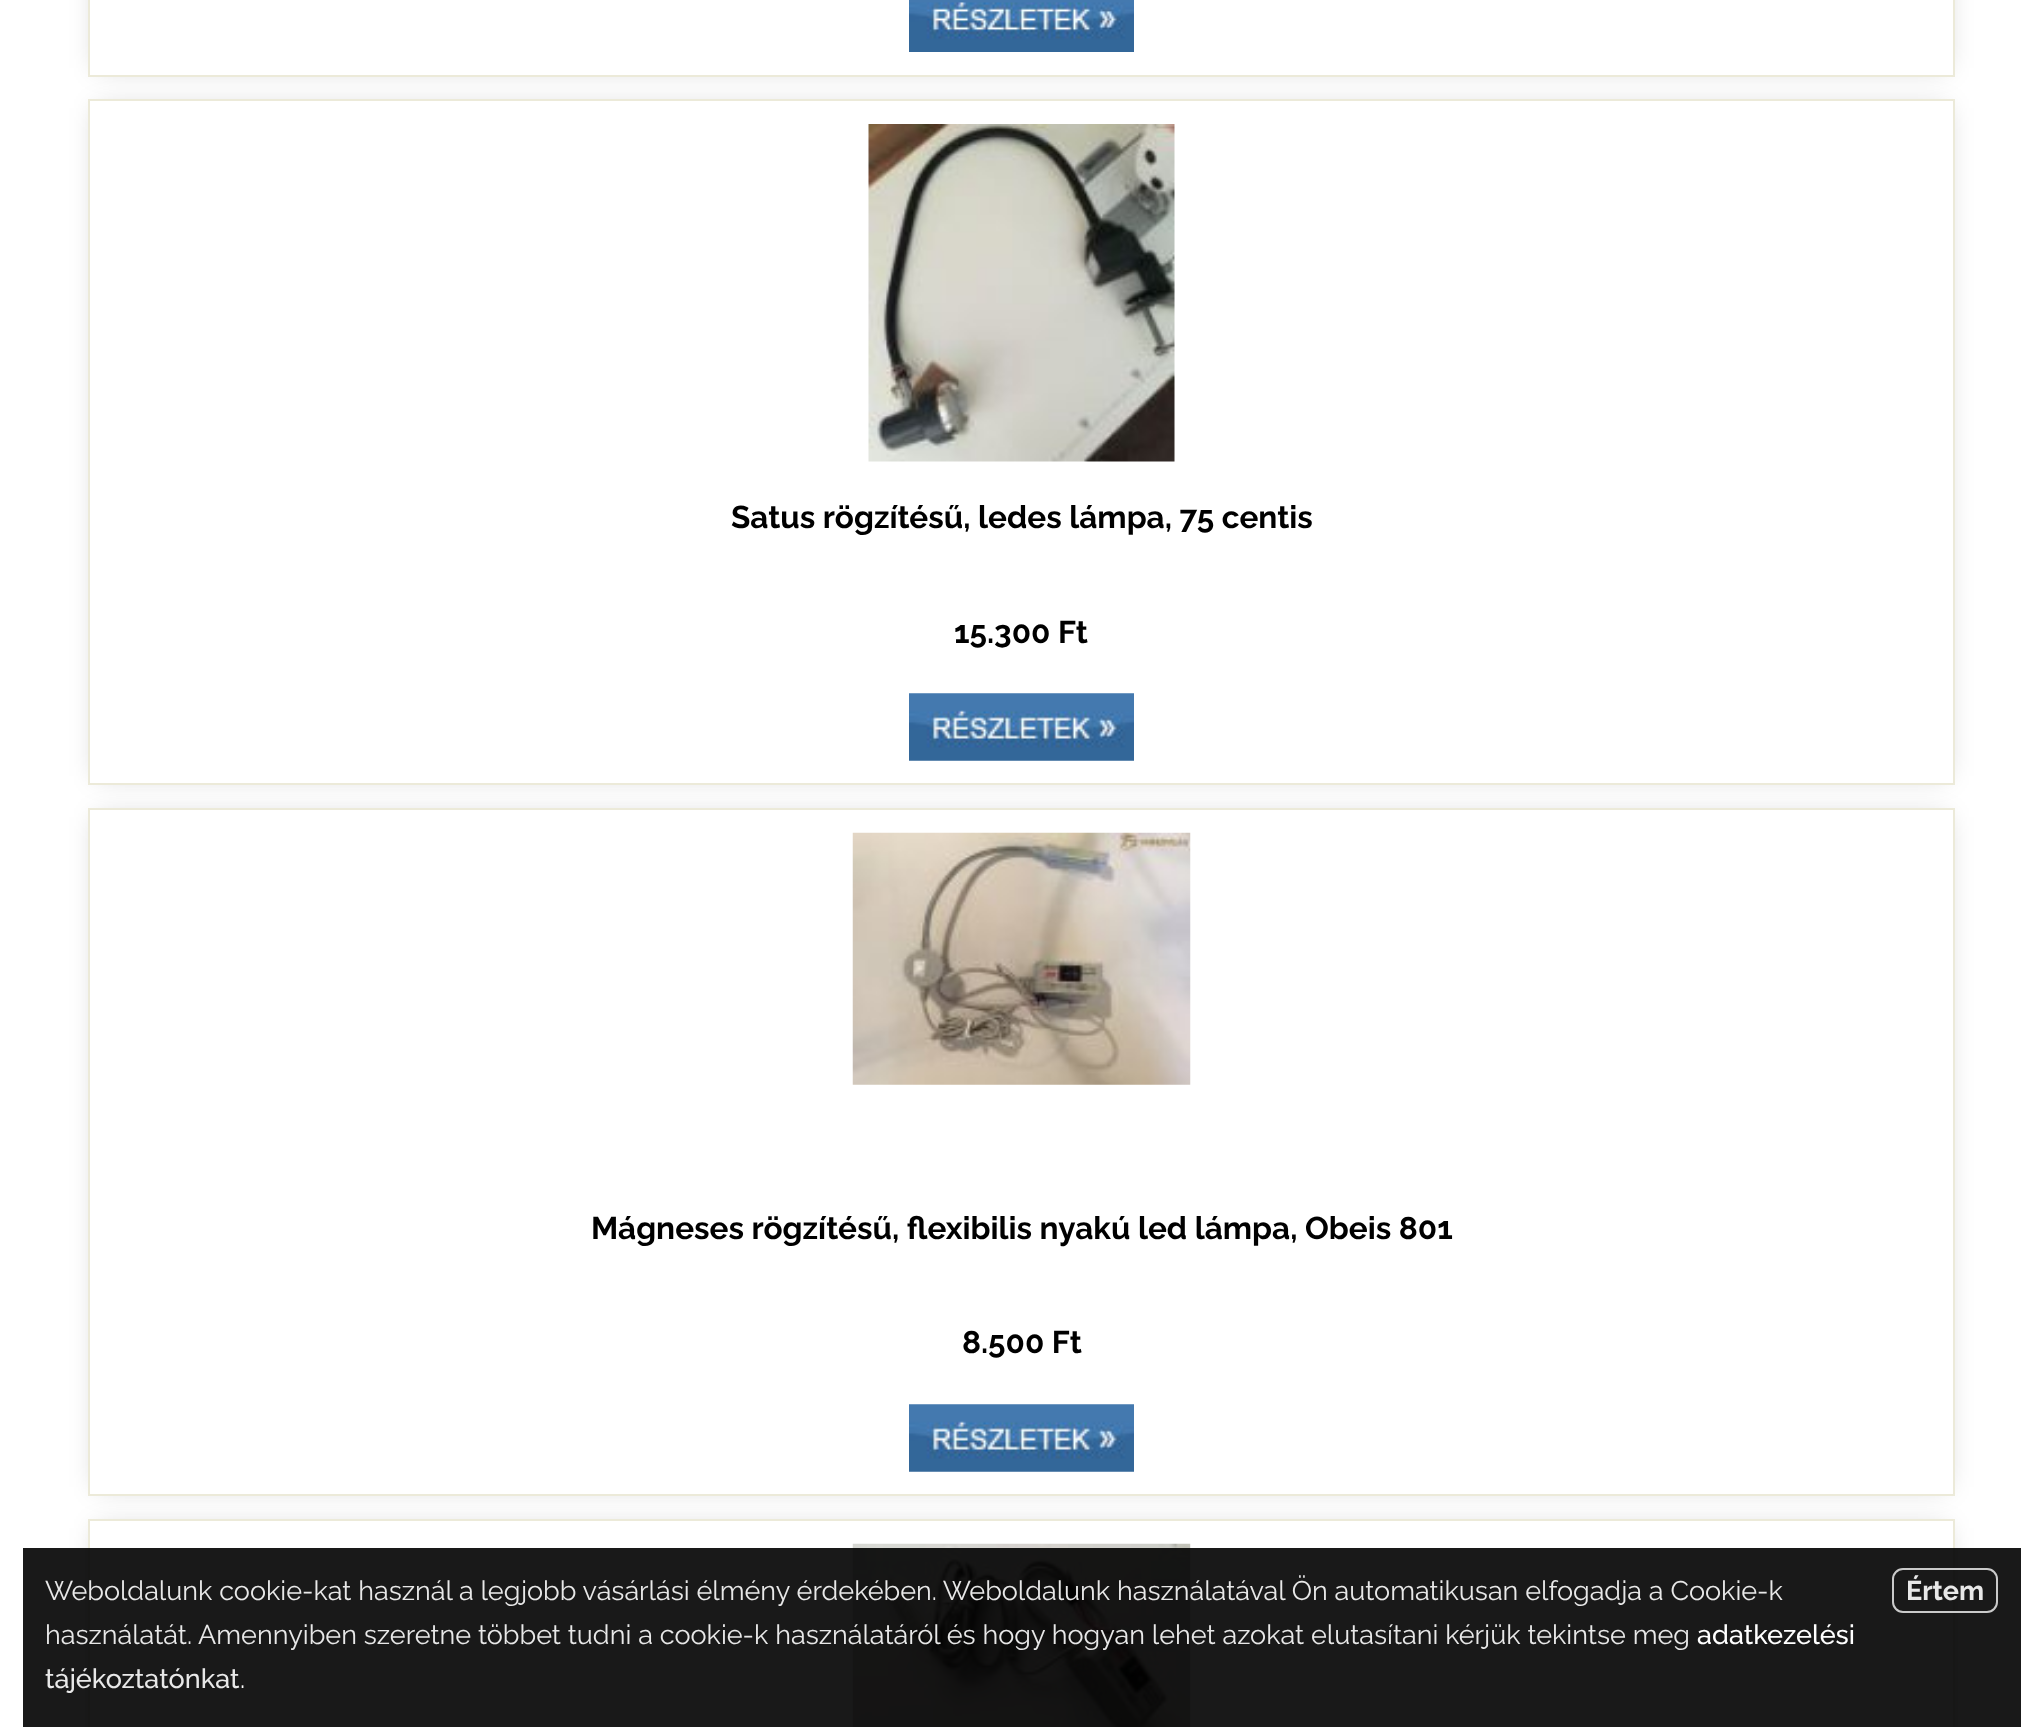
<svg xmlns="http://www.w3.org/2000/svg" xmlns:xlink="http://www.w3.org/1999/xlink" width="2042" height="1727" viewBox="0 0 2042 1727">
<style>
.cls-1{font:bold 31.5px Raleway;fill:#000000}
.cls-2{font:27px Raleway;fill:#e8e8e8}
.cls-3{font:bold 27px Raleway;fill:#e8e8e8}
.cls-4{font:500 27px Raleway;fill:#ffffff}
.cls-5{font:500 27px Raleway;fill:#e8e8e8}
.cls-6{font:27px Raleway;fill:#ffffff}
</style>
<defs>
<clipPath id="clip1"><path d="M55 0H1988V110H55ZM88-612H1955V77H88Z" clip-rule="evenodd"/></clipPath>
<clipPath id="clip2"><path d="M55 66H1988V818H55ZM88 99H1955V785H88Z" clip-rule="evenodd"/></clipPath>
<clipPath id="clip3"><path d="M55 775H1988V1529H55ZM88 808H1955V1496H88Z" clip-rule="evenodd"/></clipPath>
<clipPath id="clip4"><path d="M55 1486H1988V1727H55ZM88 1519H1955V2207H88Z" clip-rule="evenodd"/></clipPath>
</defs>
<rect width="100%" height="100%" fill="#ffffff"/>
<g clip-path="url(#clip1)">
<rect fill="#000000" fill-opacity="0.2" filter="blur(13.5px)" x="97" y="-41" width="1849" height="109"/>
</g>
<rect fill="none" stroke="#ecead9" stroke-width="2" x="89" y="-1" width="1865" height="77"/>
<image xlink:href="image0.png" x="909" y="0" width="225" height="52"/>
<g clip-path="url(#clip2)">
<rect fill="#000000" fill-opacity="0.2" filter="blur(13.5px)" x="97" y="108" width="1849" height="668"/>
</g>
<rect fill="none" stroke="#ecead9" stroke-width="2" x="89" y="100" width="1865" height="684"/>
<image xlink:href="image1.png" x="868" y="124" width="307" height="338"/>
<image xlink:href="image2.png" x="909" y="693" width="225" height="68"/>
<g clip-path="url(#clip3)">
<rect fill="#000000" fill-opacity="0.2" filter="blur(13.5px)" x="97" y="817" width="1849" height="670"/>
</g>
<rect fill="none" stroke="#ecead9" stroke-width="2" x="89" y="809" width="1865" height="686"/>
<image xlink:href="image3.png" x="852" y="832" width="339" height="253"/>
<image xlink:href="image2.png" x="909" y="1404" width="225" height="68"/>
<g clip-path="url(#clip4)">
<rect fill="#000000" fill-opacity="0.2" filter="blur(13.5px)" x="97" y="1528" width="1849" height="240"/>
</g>
<rect fill="none" stroke="#ecead9" stroke-width="2" x="89" y="1520" width="1865" height="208"/>
<image xlink:href="image4.png" x="852" y="1543" width="339" height="184"/>
<rect fill="#000000" fill-opacity="0.9" x="23" y="1548" width="1998" height="179"/>
<rect fill="none" stroke="#dedede" stroke-opacity="0.9" stroke-width="2" x="1893" y="1569" width="104" height="43" rx="10"/>
<text class="cls-1" x="731" y="528">Satus rögzítésű, ledes lámpa, 75 centis</text>
<text class="cls-1" x="954" y="643">15.300 Ft</text>
<text class="cls-1" x="591" y="1239">Mágneses rögzítésű, flexibilis nyakú led lámpa, Obeis 801</text>
<text class="cls-1" x="962" y="1353">8.500 Ft</text>
<text class="cls-2" x="45" y="1600">Weboldalunk cookie-kat használ a legjobb vásárlási élmény érdekében. Weboldalunk használatával Ön automatikusan elfogadja a Cookie-k</text>
<text class="cls-3" x="1906" y="1600">Értem</text>
<text class="cls-2" x="45" y="1644">használatát. Amennyiben szeretne többet tudni a cookie-k használatáról és hogy hogyan lehet azokat elutasítani kérjük tekintse meg</text>
<text class="cls-4" x="1697" y="1644">adatkezelési</text>
<text class="cls-5" x="45" y="1688">tájékoztatónkat</text>
<text class="cls-6" x="240" y="1688">.</text>
</svg>
